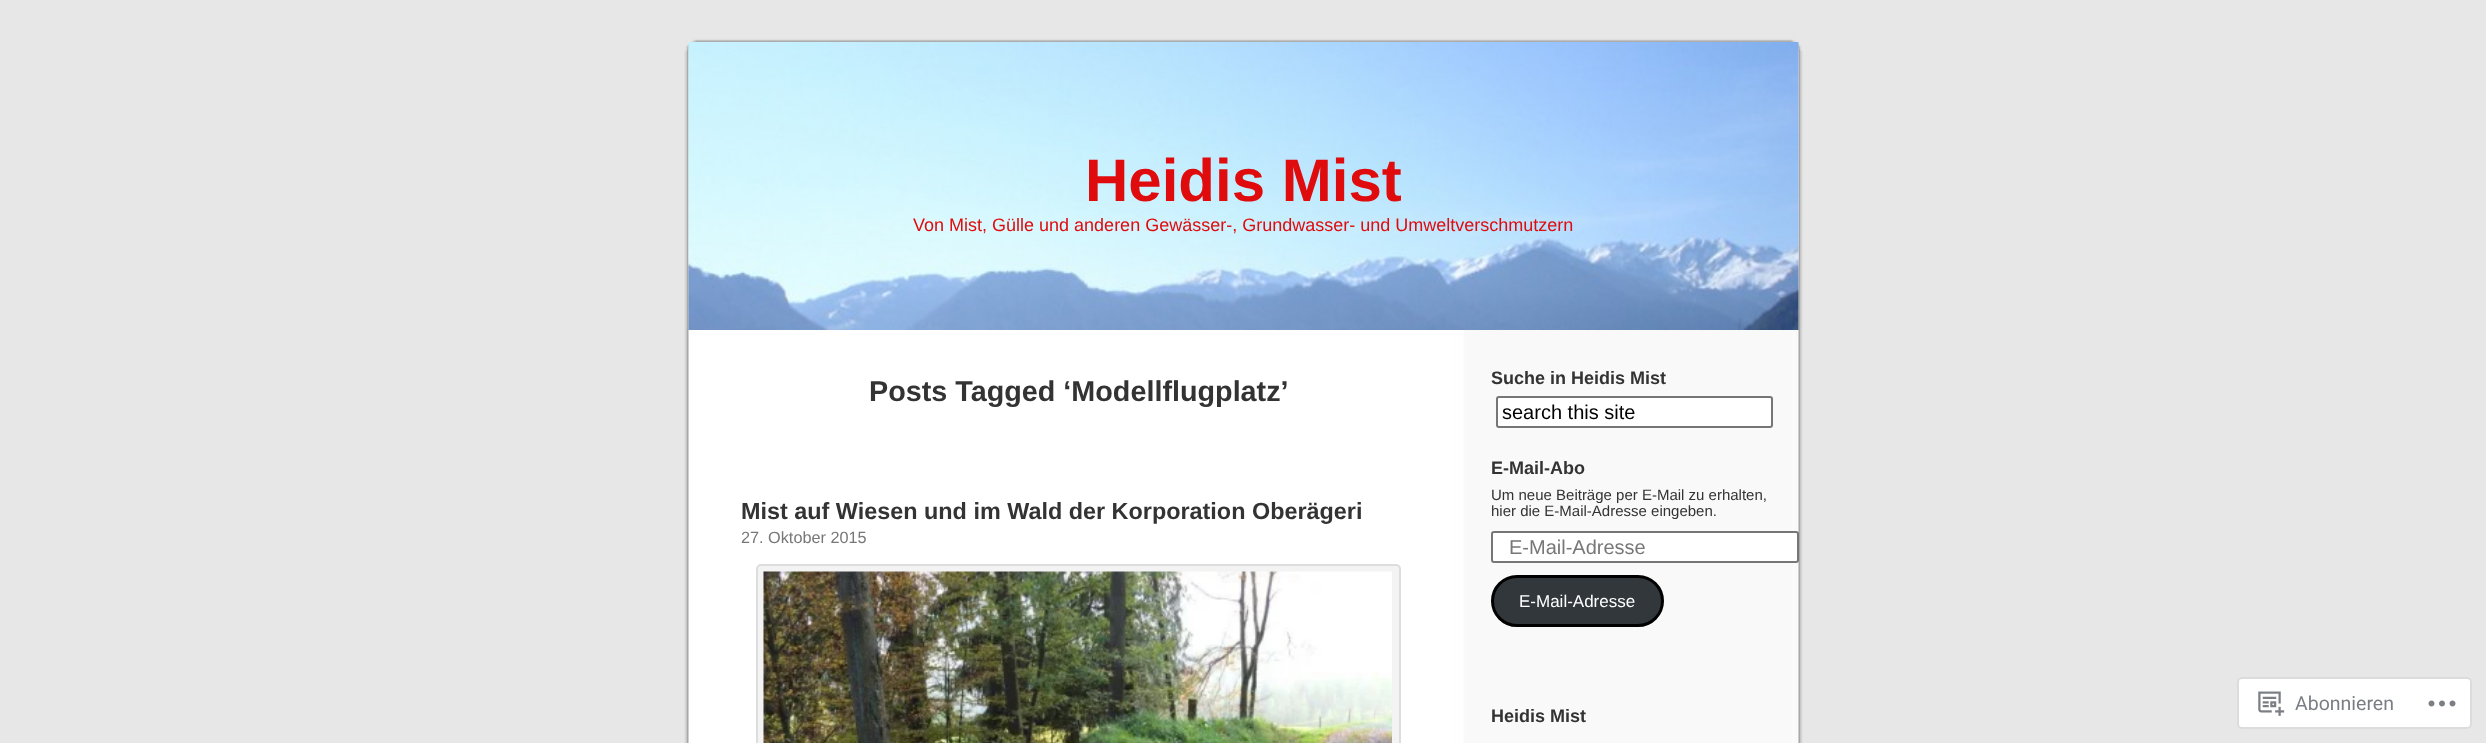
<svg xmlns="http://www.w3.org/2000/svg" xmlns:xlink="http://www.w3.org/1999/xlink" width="2486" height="743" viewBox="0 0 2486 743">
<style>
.cls-1{font:bold 60px Liberation Sans;fill:#e00b0c}
.cls-2{font:18px Liberation Sans;fill:#e00b0c}
.cls-3{font:bold 28.75px Liberation Sans;fill:#333333}
.cls-4{font:bold 23.4px Liberation Sans;fill:#333333}
.cls-5{font:16.25px Liberation Sans;fill:#777777}
.cls-6{font:bold 18px Liberation Sans;fill:#333333}
.cls-7{font:20px Liberation Sans;fill:#000000}
.cls-8{font:15px Liberation Sans;fill:#333333}
.cls-9{font:20px Liberation Sans;fill:#777777}
.cls-10{font:17px Liberation Sans;fill:#ffffff}
.cls-11{font:19.5px Roboto;fill:#7a7e84}
</style>
<rect width="100%" height="100%" fill="#e7e7e7"/>
<image xlink:href="image0.png" x="684" y="330" width="1119" height="413"/>
<image xlink:href="image1.png" x="684" y="30" width="1119" height="300"/>
<image xlink:href="image2.png" x="688" y="42" width="1111" height="288"/>
<rect fill="#f3f3f3" stroke="#dddddd" stroke-width="2" x="757" y="565" width="643" height="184" rx="4"/>
<image xlink:href="image3.png" x="763" y="571" width="629" height="172"/>
<rect fill="#ffffff" stroke="#767676" stroke-width="2" x="1497" y="397" width="275" height="30" rx="2"/>
<rect fill="#ffffff" stroke="#767676" stroke-width="2" x="1492" y="532" width="306" height="30" rx="2"/>
<rect fill="#32373c" stroke="#000000" stroke-width="3" x="1492.5" y="576.5" width="170" height="49" rx="24.5"/>
<rect fill="#ffffff" stroke="#dcdcde" stroke-width="2" x="2238" y="678" width="233" height="50" rx="4"/>
<image xlink:href="image4.png" x="2258" y="691" width="27" height="25"/>
<image xlink:href="image5.png" x="2428" y="700" width="28" height="7"/>
<text class="cls-1" x="1085" y="201">Heidis Mist</text>
<text class="cls-2" x="913" y="231">Von Mist, Gülle und anderen Gewässer-, Grundwasser- und Umweltverschmutzern</text>
<text class="cls-3" x="869" y="401">Posts Tagged ‘Modellflugplatz’</text>
<text class="cls-4" x="741" y="519">Mist auf Wiesen und im Wald der Korporation Oberägeri</text>
<text class="cls-5" x="741" y="543">27. Oktober 2015</text>
<text class="cls-6" x="1491" y="384">Suche in Heidis Mist</text>
<text class="cls-7" x="1502" y="419">search this site</text>
<text class="cls-6" x="1491" y="474">E-Mail-Abo</text>
<text class="cls-8"><tspan x="1491" y="500">Um neue Beiträge per E-Mail zu erhalten,</tspan><tspan x="1491" y="516">hier die E-Mail-Adresse eingeben.</tspan></text>
<text class="cls-9" x="1509" y="554">E-Mail-Adresse</text>
<text class="cls-10" x="1519" y="607">E-Mail-Adresse</text>
<text class="cls-6" x="1491" y="722">Heidis Mist</text>
<text class="cls-11" x="2295" y="710">Abonnieren</text>
</svg>
